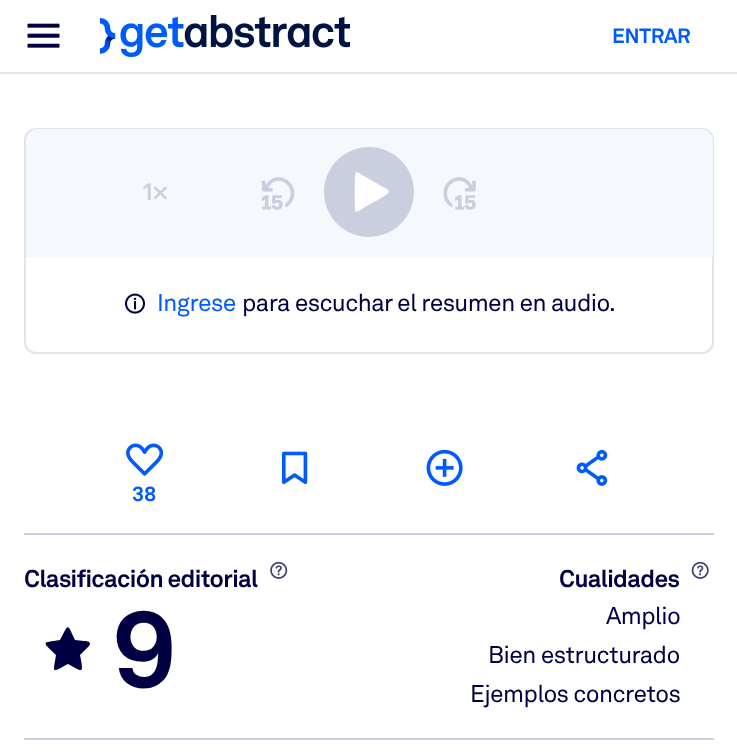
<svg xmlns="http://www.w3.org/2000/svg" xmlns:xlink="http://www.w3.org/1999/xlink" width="737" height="753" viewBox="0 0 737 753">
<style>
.cls-1{font:bold 20.5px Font;letter-spacing:-0.5px;fill:#005aff}
.cls-2{font:bold 24px Font;fill:#cacfdf}
.cls-3{font:24px Font;letter-spacing:-0.6px;fill:#005aff}
.cls-4{font:24px Font;letter-spacing:-0.6px;fill:#000042}
.cls-5{font:bold 20.5px Font;fill:#005aff}
.cls-6{font:bold 24px Font;letter-spacing:-0.6px;fill:#000042}
.cls-7{font:bold 108px Font;letter-spacing:-11px;fill:#000042}
</style>
<rect width="100%" height="100%" fill="#ffffff"/>
<rect fill="#dfe4ed" x="0" y="72" width="737" height="2"/>
<image xlink:href="image0.png" x="27" y="23" width="33" height="25"/>
<image xlink:href="image1.png" x="99" y="15" width="252" height="42"/>
<rect fill="none" stroke="#dfe4ed" stroke-width="2" x="25" y="129" width="688" height="224" rx="11"/>
<path fill="#f5f8fc" d="M38 129H701C707.5 129 713 134.5 713 141V257H26V141C26 134.5 31.5 129 38 129Z"/>
<image xlink:href="image2.png" x="261" y="177" width="34" height="33"/>
<circle fill="#cacfdf" cx="369" cy="192" r="45"/>
<path fill="#ffffff" d="M389 192C389 194 371 204 368 205C359 211 355 214 355 210C355 205 354 174 356 172H357L383 187C383 187 389 189 389 192Z"/>
<image xlink:href="image3.png" x="443" y="177" width="33" height="33"/>
<image xlink:href="image4.png" x="125" y="293" width="20" height="21"/>
<image xlink:href="image5.png" x="282" y="451" width="26" height="34"/>
<image xlink:href="image6.png" x="426" y="449" width="37" height="37"/>
<image xlink:href="image7.png" x="576" y="449" width="32" height="37"/>
<image xlink:href="image8.png" x="126" y="443" width="38" height="33"/>
<rect fill="#cacfdf" x="24" y="533" width="690" height="2"/>
<image xlink:href="image9.png" x="270" y="561" width="18" height="18"/>
<path fill="#000042" d="M89 646L80 655C84 675 83 672 68 664C51 673 53 674 56 655C42 641 41 643 60 640C69 623 67 623 75 640L84 641C86 641 90 641 90 644Z"/>
<image xlink:href="image10.png" x="691" y="561" width="18" height="18"/>
<rect fill="#cacfdf" x="24" y="738" width="690" height="2"/>
<text class="cls-1" x="612" y="43">ENTRAR</text>
<text class="cls-2" x="143" y="200">1×</text>
<text class="cls-3" x="157" y="311">Ingrese</text>
<text class="cls-4" x="242" y="311">para escuchar el resumen en audio.</text>
<text class="cls-5" x="132" y="501">38</text>
<text class="cls-6" x="24" y="587">Clasificación editorial</text>
<text class="cls-7" x="112" y="687">9</text>
<text class="cls-6" x="559" y="587">Cualidades</text>
<text class="cls-4" x="606" y="624">Amplio</text>
<text class="cls-4" x="488" y="663">Bien estructurado</text>
<text class="cls-4" x="470" y="702">Ejemplos concretos</text>
</svg>
